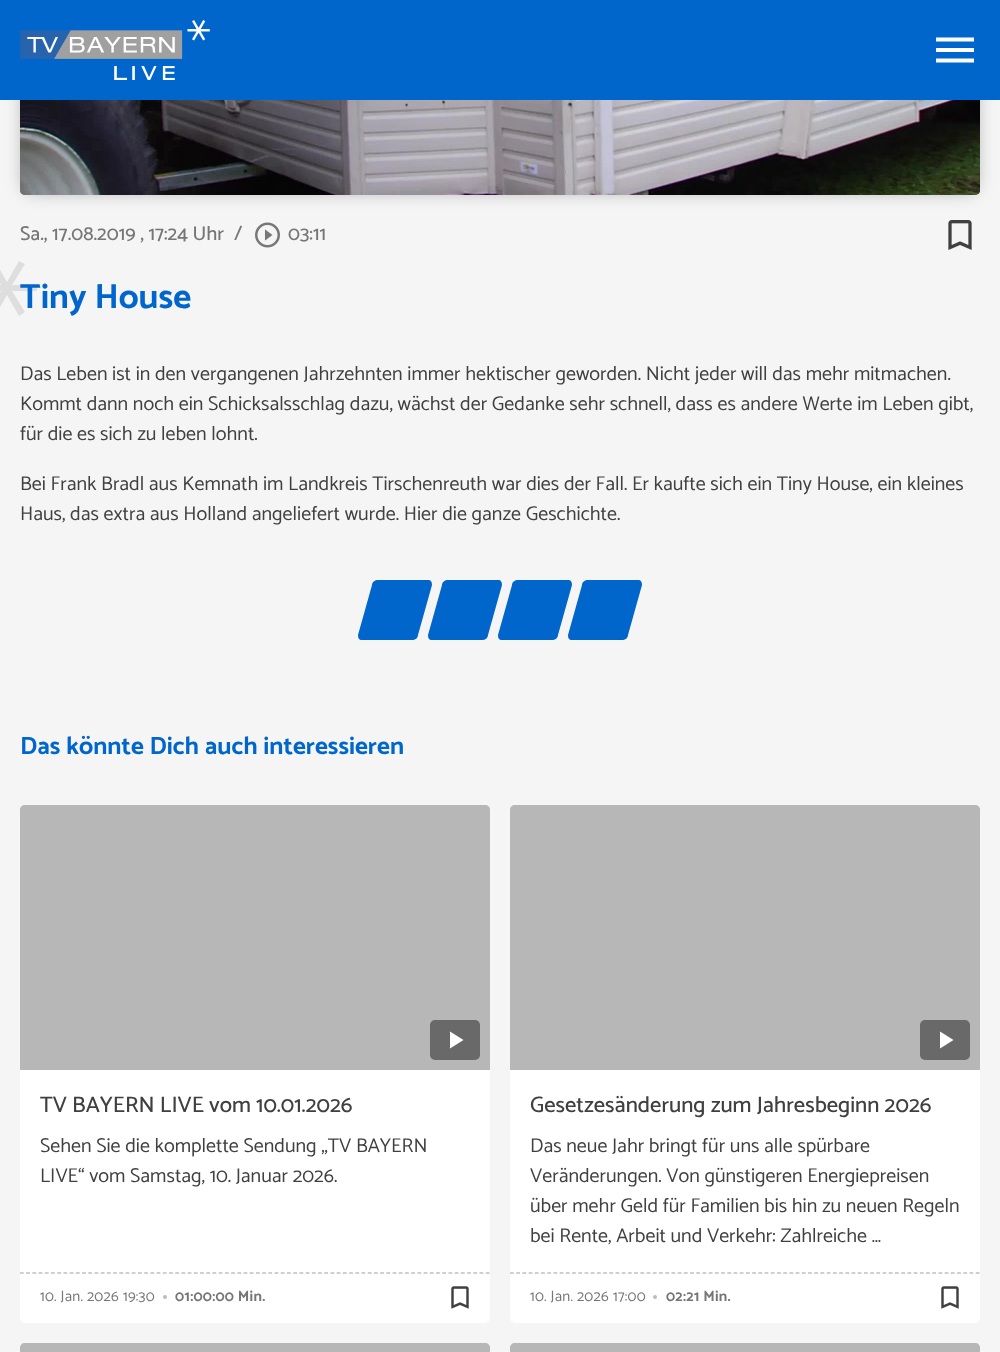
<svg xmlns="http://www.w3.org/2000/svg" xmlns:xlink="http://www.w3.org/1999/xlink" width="1000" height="1352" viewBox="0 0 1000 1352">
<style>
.cls-1{font:500 20px Catamaran;fill:#767676}
.cls-2{font:bold 35px Catamaran;fill:#0066cc}
.cls-3{font:20px Catamaran;fill:#404040}
.cls-4{font:bold 25px Catamaran;fill:#0066cc}
.cls-5{font:500 22.5px Catamaran;fill:#404040}
.cls-6{font:15px Catamaran;letter-spacing:0.25px;fill:#767676}
.cls-7{font:bold 15px Catamaran;letter-spacing:0.25px;fill:#767676}
</style>
<rect width="100%" height="100%" fill="#f5f5f5"/>
<rect fill="#000000" fill-opacity="0.4" filter="blur(9.5px)" x="26" y="-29" width="948" height="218"/>
<rect fill="#0066cc" x="0" y="0" width="1000" height="100"/>
<image xlink:href="image0.png" x="20" y="20" width="190" height="60"/>
<path fill="#ffffff" d="M936 37.5H974V41.5H936ZM936 52V48H974V52ZM936 62.5V58.5H974V62.5Z"/>
<image xlink:href="image1.png" x="20" y="190" width="960" height="5"/>
<image xlink:href="image3.png" x="20" y="190" width="960" height="5"/>
<image xlink:href="image2.png" x="20" y="100" width="960" height="95"/>
<image xlink:href="image4.png" x="255" y="222" width="25" height="26"/>
<image xlink:href="image5.png" x="948" y="220" width="24" height="30"/>
<path fill="#dedede" d="M14 291H12L25 312L19 316L7 295L-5 316L-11 312L1 291H-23V285H1L-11 264L-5 261L7 282L19 261L25 264L12 285H37V291Z"/>
<path fill="#0066cc" d="M378 580H428C431 580 432 582 432 585L418 635C418 638 415 640 412 640H362C359 640 358 638 358 635L372 585C372 582 375 580 378 580Z"/>
<path fill="#0066cc" d="M448 580H498C501 580 502 582 502 585L488 635C488 638 485 640 482 640H432C429 640 428 638 428 635L442 585C442 582 445 580 448 580Z"/>
<path fill="#0066cc" d="M518 580H568C571 580 572 582 572 585L558 635C558 638 555 640 552 640H502C499 640 498 638 498 635L512 585C512 582 515 580 518 580Z"/>
<path fill="#0066cc" d="M588 580H638C641 580 642 582 642 585L628 635C628 638 625 640 622 640H572C569 640 568 638 568 635L582 585C582 582 585 580 588 580Z"/>
<rect fill="#ffffff" x="20" y="805" width="470" height="518" rx="5"/>
<path fill="#000000" fill-opacity="0.2" d="M25 805H485C488 805 490 807 490 810V1070H20V810C20 807 22 805 25 805Z"/>
<path fill="#000000" fill-opacity="0.1" d="M25 805H485C488 805 490 807 490 810V1070H20V810C20 807 22 805 25 805Z"/>
<rect fill="#696969" x="430" y="1020" width="50" height="40" rx="5"/>
<path fill="#ffffff" d="M450 1031.5L463.5 1040L450 1048.5Z"/>
<path fill="none" stroke="#a0a0a0" stroke-width="1.2" stroke-dasharray="3.75 2.46" d="M20 1273H490"/>
<circle fill="#bcbcbc" cx="165" cy="1297" r="2"/>
<image xlink:href="image6.png" x="451" y="1286" width="18" height="23"/>
<rect fill="#ffffff" x="510" y="805" width="470" height="518" rx="5"/>
<path fill="#000000" fill-opacity="0.2" d="M515 805H975C978 805 980 807 980 810V1070H510V810C510 807 512 805 515 805Z"/>
<path fill="#000000" fill-opacity="0.1" d="M515 805H975C978 805 980 807 980 810V1070H510V810C510 807 512 805 515 805Z"/>
<rect fill="#696969" x="920" y="1020" width="50" height="40" rx="5"/>
<path fill="#ffffff" d="M940 1031.5L953.5 1040L940 1048.5Z"/>
<path fill="none" stroke="#a0a0a0" stroke-width="1.2" stroke-dasharray="3.75 2.46" d="M510 1273H980"/>
<circle fill="#bcbcbc" cx="655" cy="1297" r="2"/>
<image xlink:href="image6.png" x="941" y="1286" width="18" height="23"/>
<rect fill="#ffffff" x="20" y="1343" width="470" height="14" rx="5"/>
<path fill="#000000" fill-opacity="0.2" d="M25 1343H485C488 1343 490 1345 490 1348V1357H20V1348C20 1345 22 1343 25 1343Z"/>
<path fill="#000000" fill-opacity="0.1" d="M25 1343H485C488 1343 490 1345 490 1348V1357H20V1348C20 1345 22 1343 25 1343Z"/>
<rect fill="#ffffff" x="510" y="1343" width="470" height="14" rx="5"/>
<path fill="#000000" fill-opacity="0.2" d="M515 1343H975C978 1343 980 1345 980 1348V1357H510V1348C510 1345 512 1343 515 1343Z"/>
<path fill="#000000" fill-opacity="0.1" d="M515 1343H975C978 1343 980 1345 980 1348V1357H510V1348C510 1345 512 1343 515 1343Z"/>
<text class="cls-1" x="20" y="240">Sa., 17.08.2019 , 17:24 Uhr</text>
<text class="cls-1" x="234" y="240">/</text>
<text class="cls-1" x="288" y="240">03:11</text>
<text class="cls-2" x="20" y="308">Tiny House</text>
<text class="cls-3"><tspan x="20" y="380">Das Leben ist in den vergangenen Jahrzehnten immer hektischer geworden. Nicht jeder will das mehr mitmachen.</tspan><tspan x="20" y="410">Kommt dann noch ein Schicksalsschlag dazu, wächst der Gedanke sehr schnell, dass es andere Werte im Leben gibt,</tspan><tspan x="20" y="440">für die es sich zu leben lohnt.</tspan></text>
<text class="cls-3"><tspan x="20" y="490">Bei Frank Bradl aus Kemnath im Landkreis Tirschenreuth war dies der Fall. Er kaufte sich ein Tiny House, ein kleines</tspan><tspan x="20" y="520">Haus, das extra aus Holland angeliefert wurde. Hier die ganze Geschichte.</tspan></text>
<text class="cls-4" x="20" y="754">Das könnte Dich auch interessieren</text>
<text class="cls-5" x="40" y="1112">TV BAYERN LIVE vom 10.01.2026</text>
<text class="cls-3"><tspan x="40" y="1152">Sehen Sie die komplette Sendung „TV BAYERN</tspan><tspan x="40" y="1182">LIVE“ vom Samstag, 10. Januar 2026.</tspan></text>
<text class="cls-6" x="40" y="1301">10. Jan. 2026</text>
<text class="cls-6" x="123" y="1301">19:30</text>
<text class="cls-7" x="175" y="1301">01:00:00 Min.</text>
<text class="cls-5" x="530" y="1112">Gesetzesänderung zum Jahresbeginn 2026</text>
<text class="cls-3"><tspan x="530" y="1152">Das neue Jahr bringt für uns alle spürbare</tspan><tspan x="530" y="1182">Veränderungen. Von günstigeren Energiepreisen</tspan><tspan x="530" y="1212">über mehr Geld für Familien bis hin zu neuen Regeln</tspan><tspan x="530" y="1242">bei Rente, Arbeit und Verkehr: Zahlreiche …</tspan></text>
<text class="cls-6" x="530" y="1301">10. Jan. 2026</text>
<text class="cls-6" x="613" y="1301">17:00</text>
<text class="cls-7" x="666" y="1301">02:21 Min.</text>
</svg>
